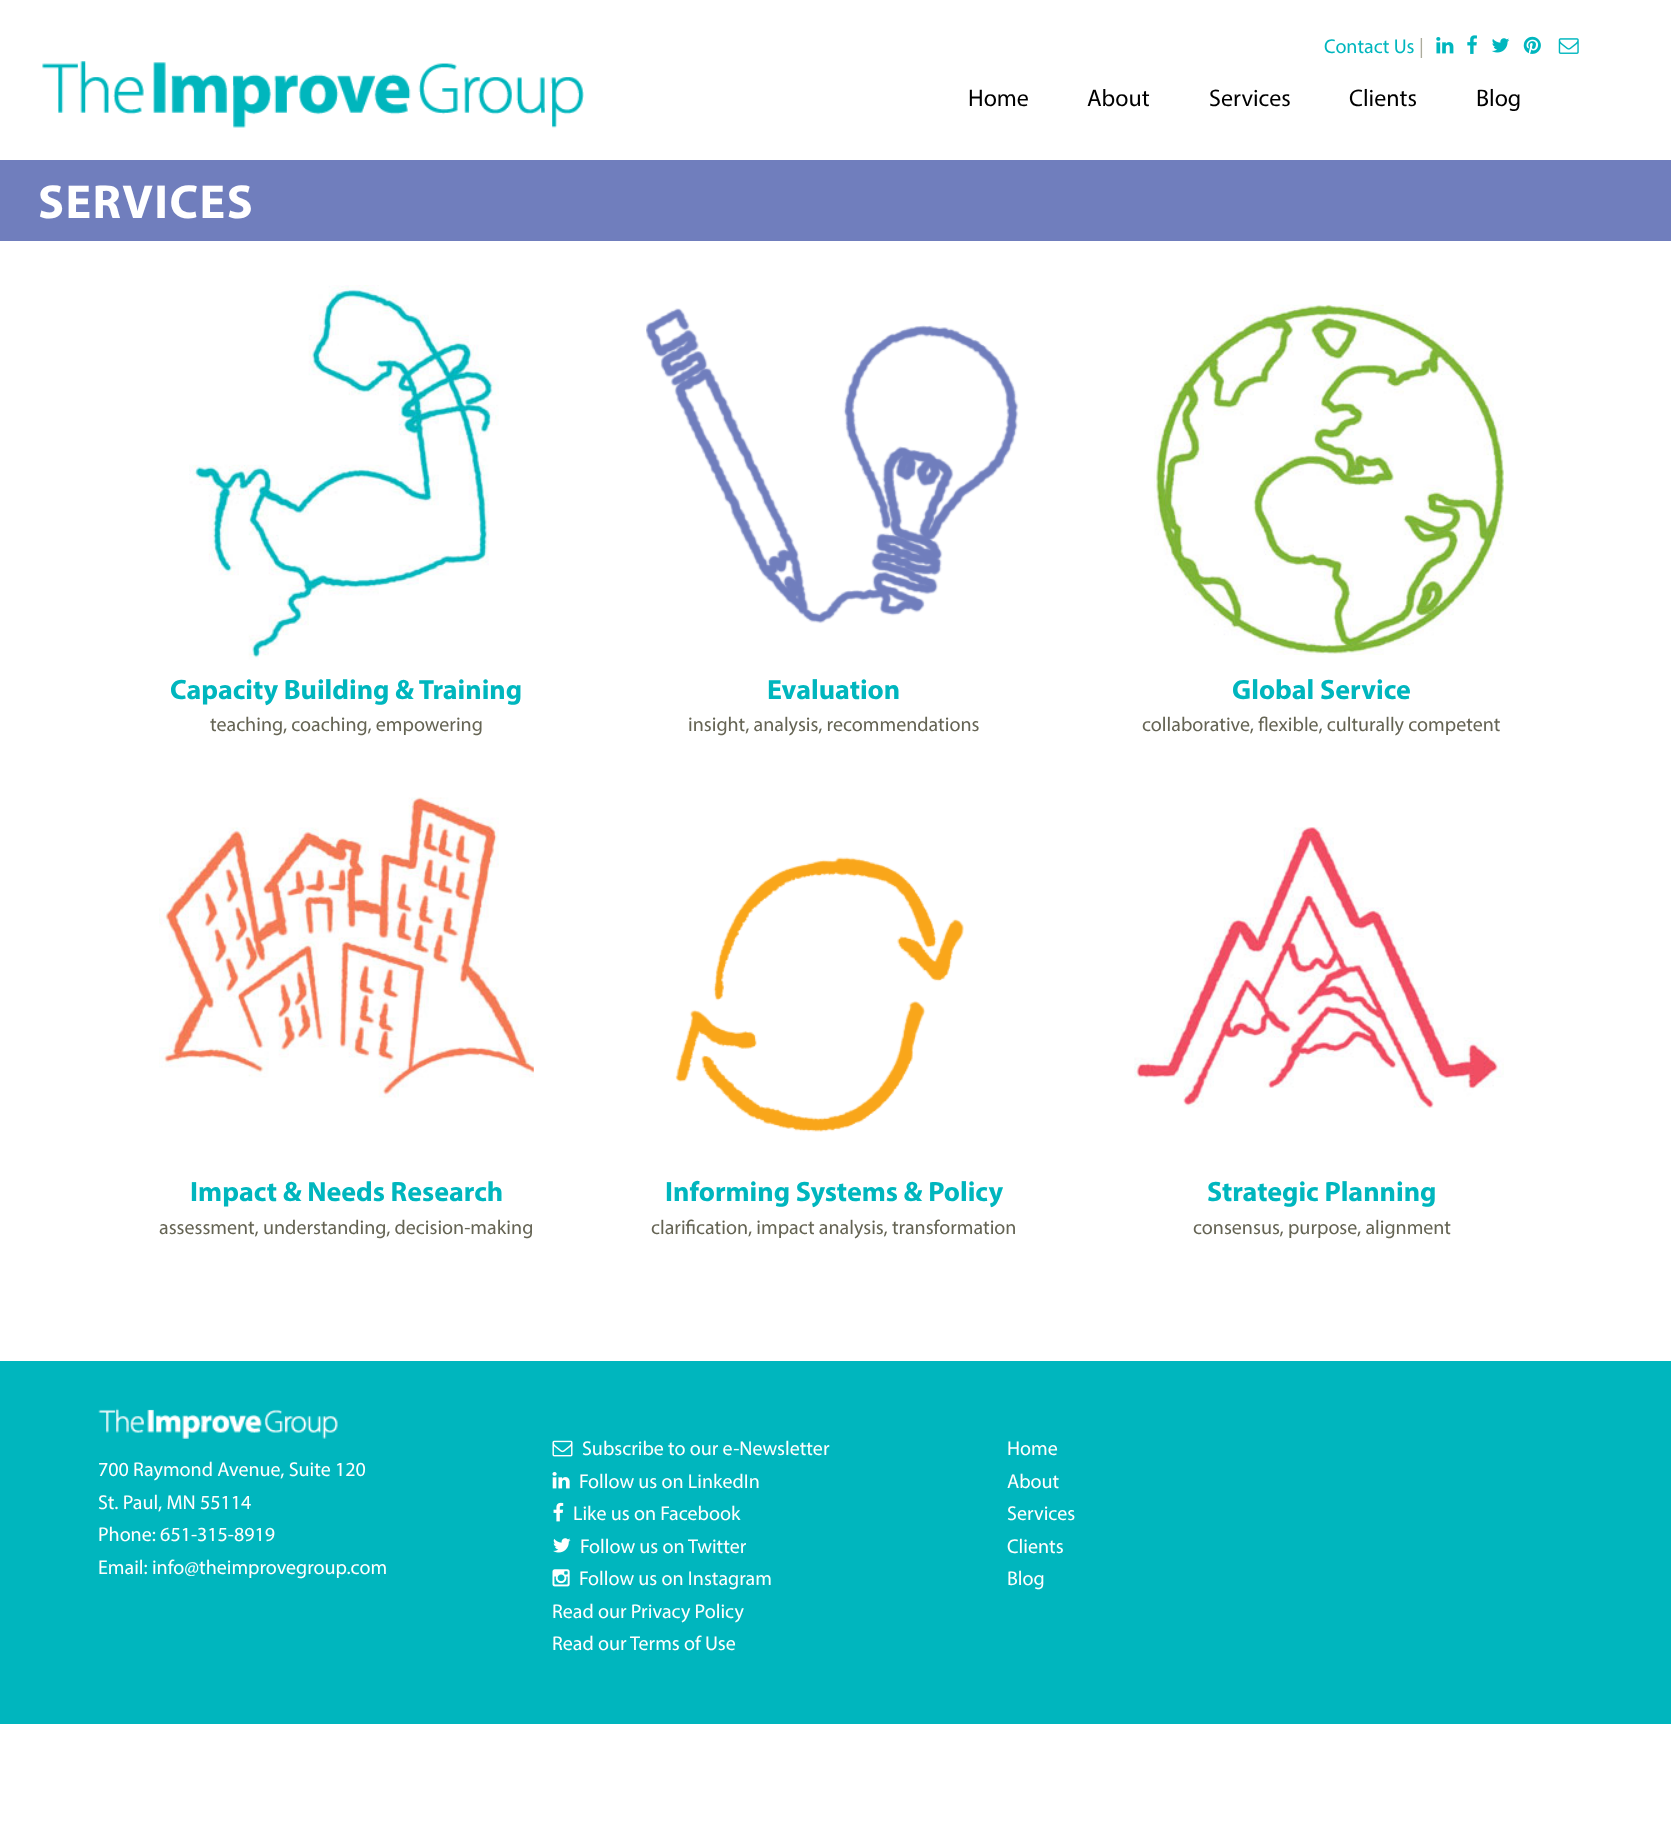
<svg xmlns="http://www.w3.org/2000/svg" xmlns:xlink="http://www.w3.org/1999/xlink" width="1671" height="1841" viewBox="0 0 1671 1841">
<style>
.cls-1{font:20px Myriad;fill:#00b6be}
.cls-2{font:20px Myriad;fill:#acab9c}
.cls-3{font:24px Myriad;fill:#000000}
.cls-4{font:bold 48px Myriad;letter-spacing:1.5px;fill:#ffffff}
.cls-5{font:bold 28px Myriad;fill:#00b6be}
.cls-6{font:20px Myriad;fill:#656454}
.cls-7{font:20px Myriad;fill:#ffffff}
</style>
<rect width="100%" height="100%" fill="#ffffff"/>
<image xlink:href="image0.png" x="1436" y="37" width="18" height="17"/>
<image xlink:href="image1.png" x="1467" y="35" width="10" height="19"/>
<image xlink:href="image2.png" x="1491" y="38" width="19" height="15"/>
<image xlink:href="image3.png" x="1523" y="36" width="18" height="18"/>
<image xlink:href="image4.png" x="1558" y="38" width="21" height="16"/>
<rect fill="#707ebd" x="0" y="160" width="1671" height="81"/>
<image xlink:href="image5.png" x="189" y="285" width="310" height="375"/>
<image xlink:href="image6.png" x="646" y="308" width="373" height="316"/>
<image xlink:href="image7.png" x="1154" y="304" width="350" height="351"/>
<image xlink:href="image8.png" x="159" y="797" width="375" height="301"/>
<image xlink:href="image9.png" x="675" y="857" width="289" height="275"/>
<image xlink:href="image10.png" x="1134" y="827" width="370" height="281"/>
<image xlink:href="image11.png" x="42" y="61" width="542" height="67"/>
<rect fill="#00b6be" x="0" y="1361" width="1671" height="363"/>
<image xlink:href="image12.png" x="98" y="1408" width="240" height="31"/>
<image xlink:href="image13.png" x="552" y="1440" width="21" height="17"/>
<image xlink:href="image14.png" x="552" y="1472" width="18" height="17"/>
<image xlink:href="image15.png" x="553" y="1502" width="11" height="20"/>
<image xlink:href="image16.png" x="553" y="1538" width="18" height="15"/>
<image xlink:href="image17.png" x="552" y="1569" width="18" height="18"/>
<text class="cls-1" x="1324" y="53">Contact Us</text>
<text class="cls-2" x="1419" y="53">|</text>
<text class="cls-3" x="968" y="106">Home</text>
<text class="cls-3" x="1087" y="106">About</text>
<text class="cls-3" x="1209" y="106">Services</text>
<text class="cls-3" x="1349" y="106">Clients</text>
<text class="cls-3" x="1476" y="106">Blog</text>
<text class="cls-4" x="38" y="218">SERVICES</text>
<text class="cls-5" x="170" y="699">Capacity Building &amp; Training</text>
<text class="cls-6" x="210" y="731">teaching, coaching, empowering</text>
<text class="cls-5" x="767" y="699">Evaluation</text>
<text class="cls-6" x="688" y="731">insight, analysis, recommendations</text>
<text class="cls-5" x="1232" y="699">Global Service</text>
<text class="cls-6" x="1142" y="731">collaborative, flexible, culturally competent</text>
<text class="cls-5" x="190" y="1201">Impact &amp; Needs Research</text>
<text class="cls-6" x="159" y="1234">assessment, understanding, decision-making</text>
<text class="cls-5" x="665" y="1201">Informing Systems &amp; Policy</text>
<text class="cls-6" x="651" y="1234">clarification, impact analysis, transformation</text>
<text class="cls-5" x="1207" y="1201">Strategic Planning</text>
<text class="cls-6" x="1193" y="1234">consensus, purpose, alignment</text>
<text class="cls-7"><tspan x="98" y="1476">700 Raymond Avenue, Suite 120</tspan><tspan x="98" y="1509">St. Paul, MN 55114</tspan><tspan x="98" y="1541">Phone: 651-315-8919</tspan><tspan x="98" y="1574">Email: info@theimprovegroup.com</tspan></text>
<text class="cls-7" x="582" y="1455">Subscribe to our e-Newsletter</text>
<text class="cls-7" x="579" y="1488">Follow us on LinkedIn</text>
<text class="cls-7" x="573" y="1520">Like us on Facebook</text>
<text class="cls-7" x="580" y="1553">Follow us on Twitter</text>
<text class="cls-7" x="579" y="1585">Follow us on Instagram</text>
<text class="cls-7"><tspan x="552" y="1618">Read our Privacy Policy</tspan><tspan x="552" y="1650">Read our Terms of Use</tspan></text>
<text class="cls-7"><tspan x="1007" y="1455">Home</tspan><tspan x="1007" y="1488">About</tspan><tspan x="1007" y="1520">Services</tspan><tspan x="1007" y="1553">Clients</tspan><tspan x="1007" y="1585">Blog</tspan></text>
</svg>
